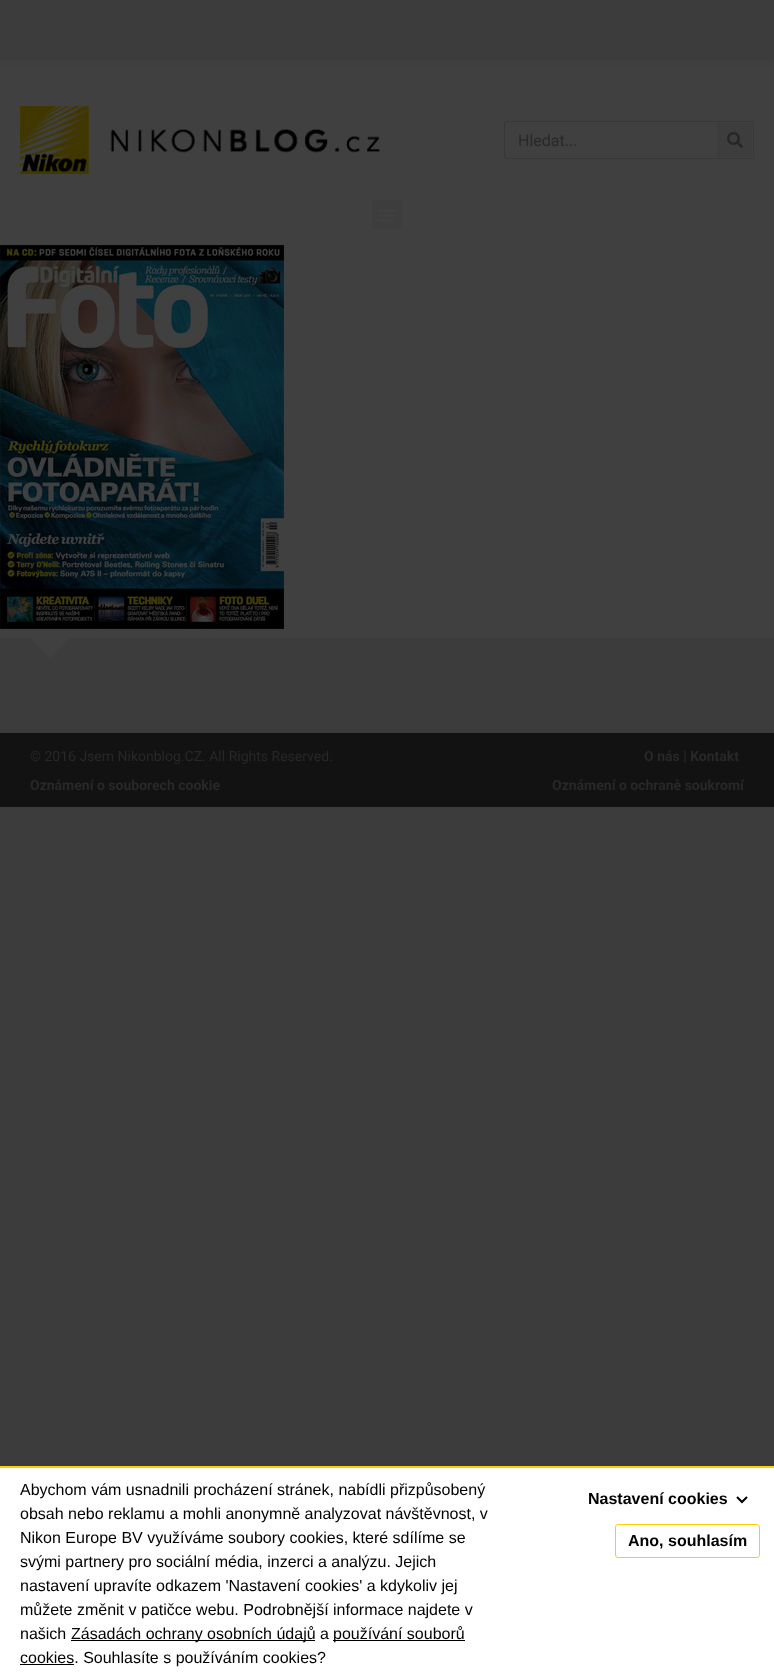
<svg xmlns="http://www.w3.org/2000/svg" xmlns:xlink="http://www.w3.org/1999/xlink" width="774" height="1680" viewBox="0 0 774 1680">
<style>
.cls-1{font:16px Roboto;fill:#282828}
.cls-2{font:14px Roboto;fill:#282828}
.cls-3{font:bold 14px Roboto;fill:#282828}
.cls-4{font:16px Liberation Sans;fill:#000000}
.cls-5{font:bold 16px Liberation Sans;fill:#000000}
</style>
<rect width="100%" height="100%" fill="#3c3c3c"/>
<rect fill="#404040" x="0" y="60" width="774" height="185"/>
<image xlink:href="image0.png" x="0" y="60" width="774" height="5"/>
<image xlink:href="image1.png" x="20" y="106" width="360" height="68"/>
<rect fill="none" stroke="#393838" x="504.5" y="121.5" width="249" height="37" rx="1.5"/>
<rect fill="#3d3d3d" x="717" y="123" width="35" height="34"/>
<image xlink:href="image2.png" x="727" y="132" width="16" height="16"/>
<rect fill="#3d3d3d" x="372" y="200" width="30" height="30"/>
<image xlink:href="image3.png" x="378" y="209" width="18" height="13"/>
<rect fill="#404040" x="0" y="245" width="774" height="393"/>
<image xlink:href="image4.png" x="0" y="245" width="284" height="384"/>
<path fill="#404040" d="M30 638H70L50 658Z"/>
<rect fill="#121212" x="0" y="733" width="774" height="74"/>
<rect fill="#ffffff" x="0" y="1468" width="774" height="212"/>
<rect fill="#fed000" x="0" y="1466" width="774" height="2"/>
<rect fill="#000000" x="71" y="1640" width="244" height="1"/>
<rect fill="#000000" x="333" y="1640" width="132" height="1"/>
<rect fill="#000000" x="20" y="1664" width="54" height="1"/>
<path fill="none" stroke="#000000" stroke-width="2" d="M737 1497L742 1502L747 1497"/>
<rect fill="none" stroke="#fed000" x="615.5" y="1524.5" width="144" height="33" rx="2.5"/>
<text class="cls-1" x="518" y="146">Hledat...</text>
<text class="cls-2" x="30" y="761">© 2016 Jsem Nikonblog.CZ. All Rights Reserved.</text>
<text class="cls-3" x="644" y="761">O nás | Kontakt</text>
<text class="cls-3" x="30" y="790">Oznámení o souborech cookie</text>
<text class="cls-3" x="552" y="790">Oznámení o ochraně soukromí</text>
<text class="cls-4"><tspan x="20" y="1495">Abychom vám usnadnili procházení stránek, nabídli přizpůsobený</tspan><tspan x="20" y="1519">obsah nebo reklamu a mohli anonymně analyzovat návštěvnost, v</tspan><tspan x="20" y="1543">Nikon Europe BV využíváme soubory cookies, které sdílíme se</tspan><tspan x="20" y="1567">svými partnery pro sociální média, inzerci a analýzu. Jejich</tspan><tspan x="20" y="1591">nastavení upravíte odkazem 'Nastavení cookies' a kdykoliv jej</tspan><tspan x="20" y="1615">můžete změnit v patičce webu. Podrobnější informace najdete v</tspan><tspan x="20" y="1639">našich</tspan></text>
<text class="cls-4" x="71" y="1639">Zásadách ochrany osobních údajů a</text>
<text class="cls-4" x="333" y="1639">používání souborů</text>
<text class="cls-4" x="20" y="1663">cookies. Souhlasíte s používáním cookies?</text>
<text class="cls-5" x="588" y="1504">Nastavení cookies</text>
<text class="cls-5" x="628" y="1546">Ano, souhlasím</text>
</svg>
